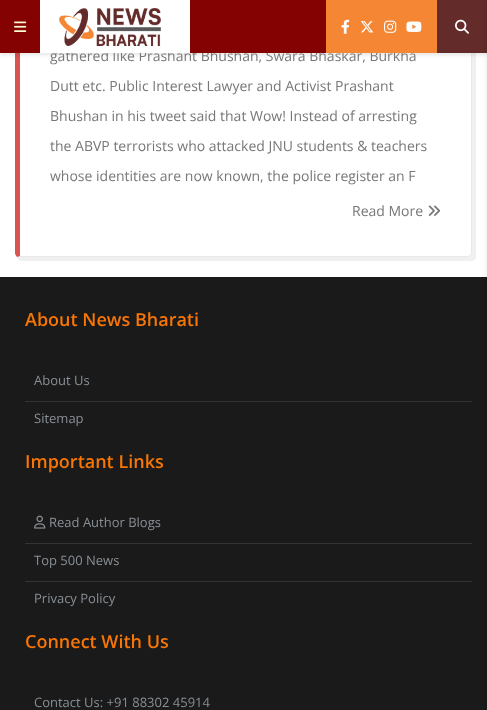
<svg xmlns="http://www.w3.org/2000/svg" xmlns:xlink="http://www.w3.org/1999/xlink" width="487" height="710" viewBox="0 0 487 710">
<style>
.cls-1{font:14px Open Sans;fill:#777777}
.cls-2{font:600 18px Open Sans;fill:#f87605}
.cls-3{font:13px Open Sans;fill:#888f96}
</style>
<rect width="100%" height="100%" fill="#ffffff"/>
<path fill="#f0f0f0" d="M17 256C17 259 19 261 22 261H471C474 261 476 259 476 256V-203C476-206 474-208 471-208L472-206V253C472 255 470 257 468 257H19Z"/>
<path fill="#e8e8e8" d="M472 253V-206L471-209L470-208L471-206V253L470 255L471 256Z"/>
<path fill="#e8e8e8" d="M19 257H468L471 256L470 255L468 256H20L17 257Z"/>
<path fill="#d9534f" d="M20-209L17-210L15-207V253C15 254 16 256 17 257L20 256Z"/>
<rect fill="#000000" fill-opacity="0.1" filter="blur(2px)" x="0" y="2" width="487" height="53"/>
<rect fill="#632b2a" x="437" y="0" width="50" height="53"/>
<image xlink:href="image6.png" x="455" y="19" width="14" height="15"/>
<rect fill="#1a1a1a" x="0" y="277" width="487" height="433"/>
<rect fill="#000000" fill-opacity="0.1" filter="blur(2px)" x="487" y="2" width="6" height="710"/>
<image xlink:href="image7.png" x="428" y="205" width="13" height="11"/>
<rect fill="#353433" x="25" y="401" width="447" height="1"/>
<rect fill="#353433" x="25" y="543" width="447" height="1"/>
<image xlink:href="image8.png" x="34" y="515" width="12" height="14"/>
<rect fill="#353433" x="25" y="581" width="447" height="1"/>
<text class="cls-1" x="50" y="61">gathered like Prashant Bhushan, Swara Bhaskar, Burkha</text>
<rect fill="#f58634" x="326" y="0" width="111" height="53"/>
<image xlink:href="image5.png" x="406" y="21" width="16" height="11"/>
<image xlink:href="image4.png" x="384" y="20" width="13" height="13"/>
<image xlink:href="image3.png" x="360" y="21" width="14" height="12"/>
<image xlink:href="image2.png" x="341" y="19" width="9" height="15"/>
<rect fill="#840202" x="0" y="0" width="326" height="53"/>
<rect fill="#ffffff" x="40" y="0" width="150" height="53"/>
<image xlink:href="image1.png" x="59" y="8" width="102" height="38"/>
<image xlink:href="image0.png" x="14" y="21" width="13" height="11"/>
<text class="cls-1" x="50" y="91">Dutt etc. Public Interest Lawyer and Activist Prashant</text>
<text class="cls-1" x="50" y="121">Bhushan in his tweet said that Wow! Instead of arresting</text>
<text class="cls-1" x="50" y="151">the ABVP terrorists who attacked JNU students &amp; teachers</text>
<text class="cls-1" x="50" y="181">whose identities are now known, the police register an F</text>
<text class="cls-1" x="352" y="216">Read More</text>
<text class="cls-2" x="25" y="326">About News Bharati</text>
<text class="cls-3" x="34" y="385">About Us</text>
<text class="cls-3" x="34" y="423">Sitemap</text>
<text class="cls-2" x="25" y="468">Important Links</text>
<text class="cls-3" x="49" y="527">Read Author Blogs</text>
<text class="cls-3" x="34" y="565">Top 500 News</text>
<text class="cls-3" x="34" y="603">Privacy Policy</text>
<text class="cls-2" x="25" y="648">Connect With Us</text>
<text class="cls-3" x="34" y="707">Contact Us: +91 88302 45914</text>
</svg>
